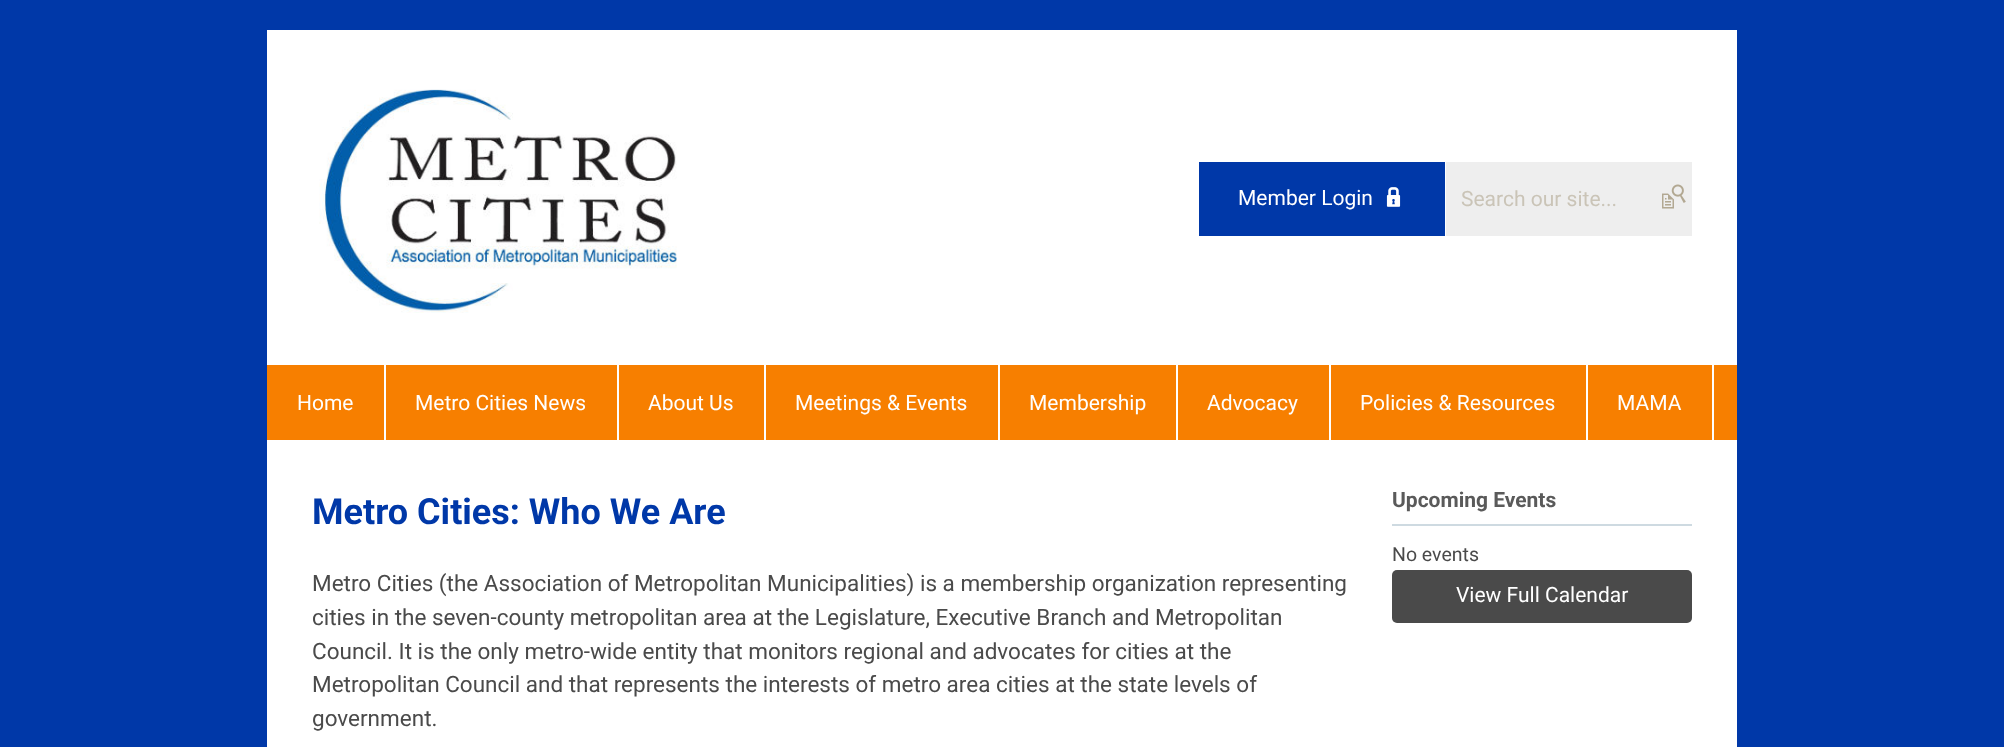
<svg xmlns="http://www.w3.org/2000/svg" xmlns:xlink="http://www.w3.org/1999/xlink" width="2004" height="747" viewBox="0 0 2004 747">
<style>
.cls-1{font:21px Roboto;fill:#ffffff}
.cls-2{font:21px Roboto;fill:#cac4b7}
.cls-3{font:bold 36px Roboto;fill:#0038a8}
.cls-4{font:22.5px Roboto;fill:#4a4a4a}
.cls-5{font:bold 21px Roboto;fill:#5a5a5a}
.cls-6{font:19.5px Roboto;fill:#4a4a4a}
</style>
<rect width="100%" height="100%" fill="#0038a8"/>
<rect fill="#ffffff" x="267" y="30" width="1470" height="335"/>
<image xlink:href="image0.png" x="319" y="89" width="358" height="224"/>
<rect fill="#0038a8" x="1199" y="162" width="246" height="74"/>
<image xlink:href="image1.png" x="1386" y="187" width="15" height="20"/>
<rect fill="#eeeeee" x="1446" y="162" width="246" height="74"/>
<image xlink:href="image2.png" x="1662" y="184" width="24" height="25"/>
<rect fill="#f77f00" x="267" y="365" width="1470" height="75"/>
<rect fill="#ffffff" x="267" y="440" width="1470" height="307"/>
<rect fill="#ffffff" x="384" y="365" width="2" height="75"/>
<rect fill="#ffffff" x="617" y="365" width="2" height="75"/>
<rect fill="#ffffff" x="764" y="365" width="2" height="75"/>
<rect fill="#ffffff" x="998" y="365" width="2" height="75"/>
<rect fill="#ffffff" x="1176" y="365" width="2" height="75"/>
<rect fill="#ffffff" x="1329" y="365" width="2" height="75"/>
<rect fill="#ffffff" x="1586" y="365" width="2" height="75"/>
<rect fill="#ffffff" x="1712" y="365" width="2" height="75"/>
<rect fill="#cedae1" x="1392" y="524" width="300" height="2"/>
<rect fill="#4a4a4a" x="1392" y="570" width="300" height="53" rx="5"/>
<text class="cls-1" x="1238" y="205">Member Login</text>
<text class="cls-2" x="1461" y="206">Search our site...</text>
<text class="cls-1" x="297" y="410">Home</text>
<text class="cls-1" x="415" y="410">Metro Cities News</text>
<text class="cls-1" x="648" y="410">About Us</text>
<text class="cls-1" x="795" y="410">Meetings &amp; Events</text>
<text class="cls-1" x="1029" y="410">Membership</text>
<text class="cls-1" x="1207" y="410">Advocacy</text>
<text class="cls-1" x="1360" y="410">Policies &amp; Resources</text>
<text class="cls-1" x="1617" y="410">MAMA</text>
<text class="cls-3" x="312" y="524">Metro Cities: Who We Are</text>
<text class="cls-4"><tspan x="312" y="591">Metro Cities (the Association of Metropolitan Municipalities) is a membership organization representing</tspan><tspan x="312" y="625">cities in the seven-county metropolitan area at the Legislature, Executive Branch and Metropolitan</tspan><tspan x="312" y="659">Council. It is the only metro-wide entity that monitors regional and advocates for cities at the</tspan><tspan x="312" y="692">Metropolitan Council and that represents the interests of metro area cities at the state levels of</tspan><tspan x="312" y="726">government.</tspan></text>
<text class="cls-5" x="1392" y="507">Upcoming Events</text>
<text class="cls-6" x="1392" y="561">No events</text>
<text class="cls-1" x="1456" y="602">View Full Calendar</text>
</svg>
